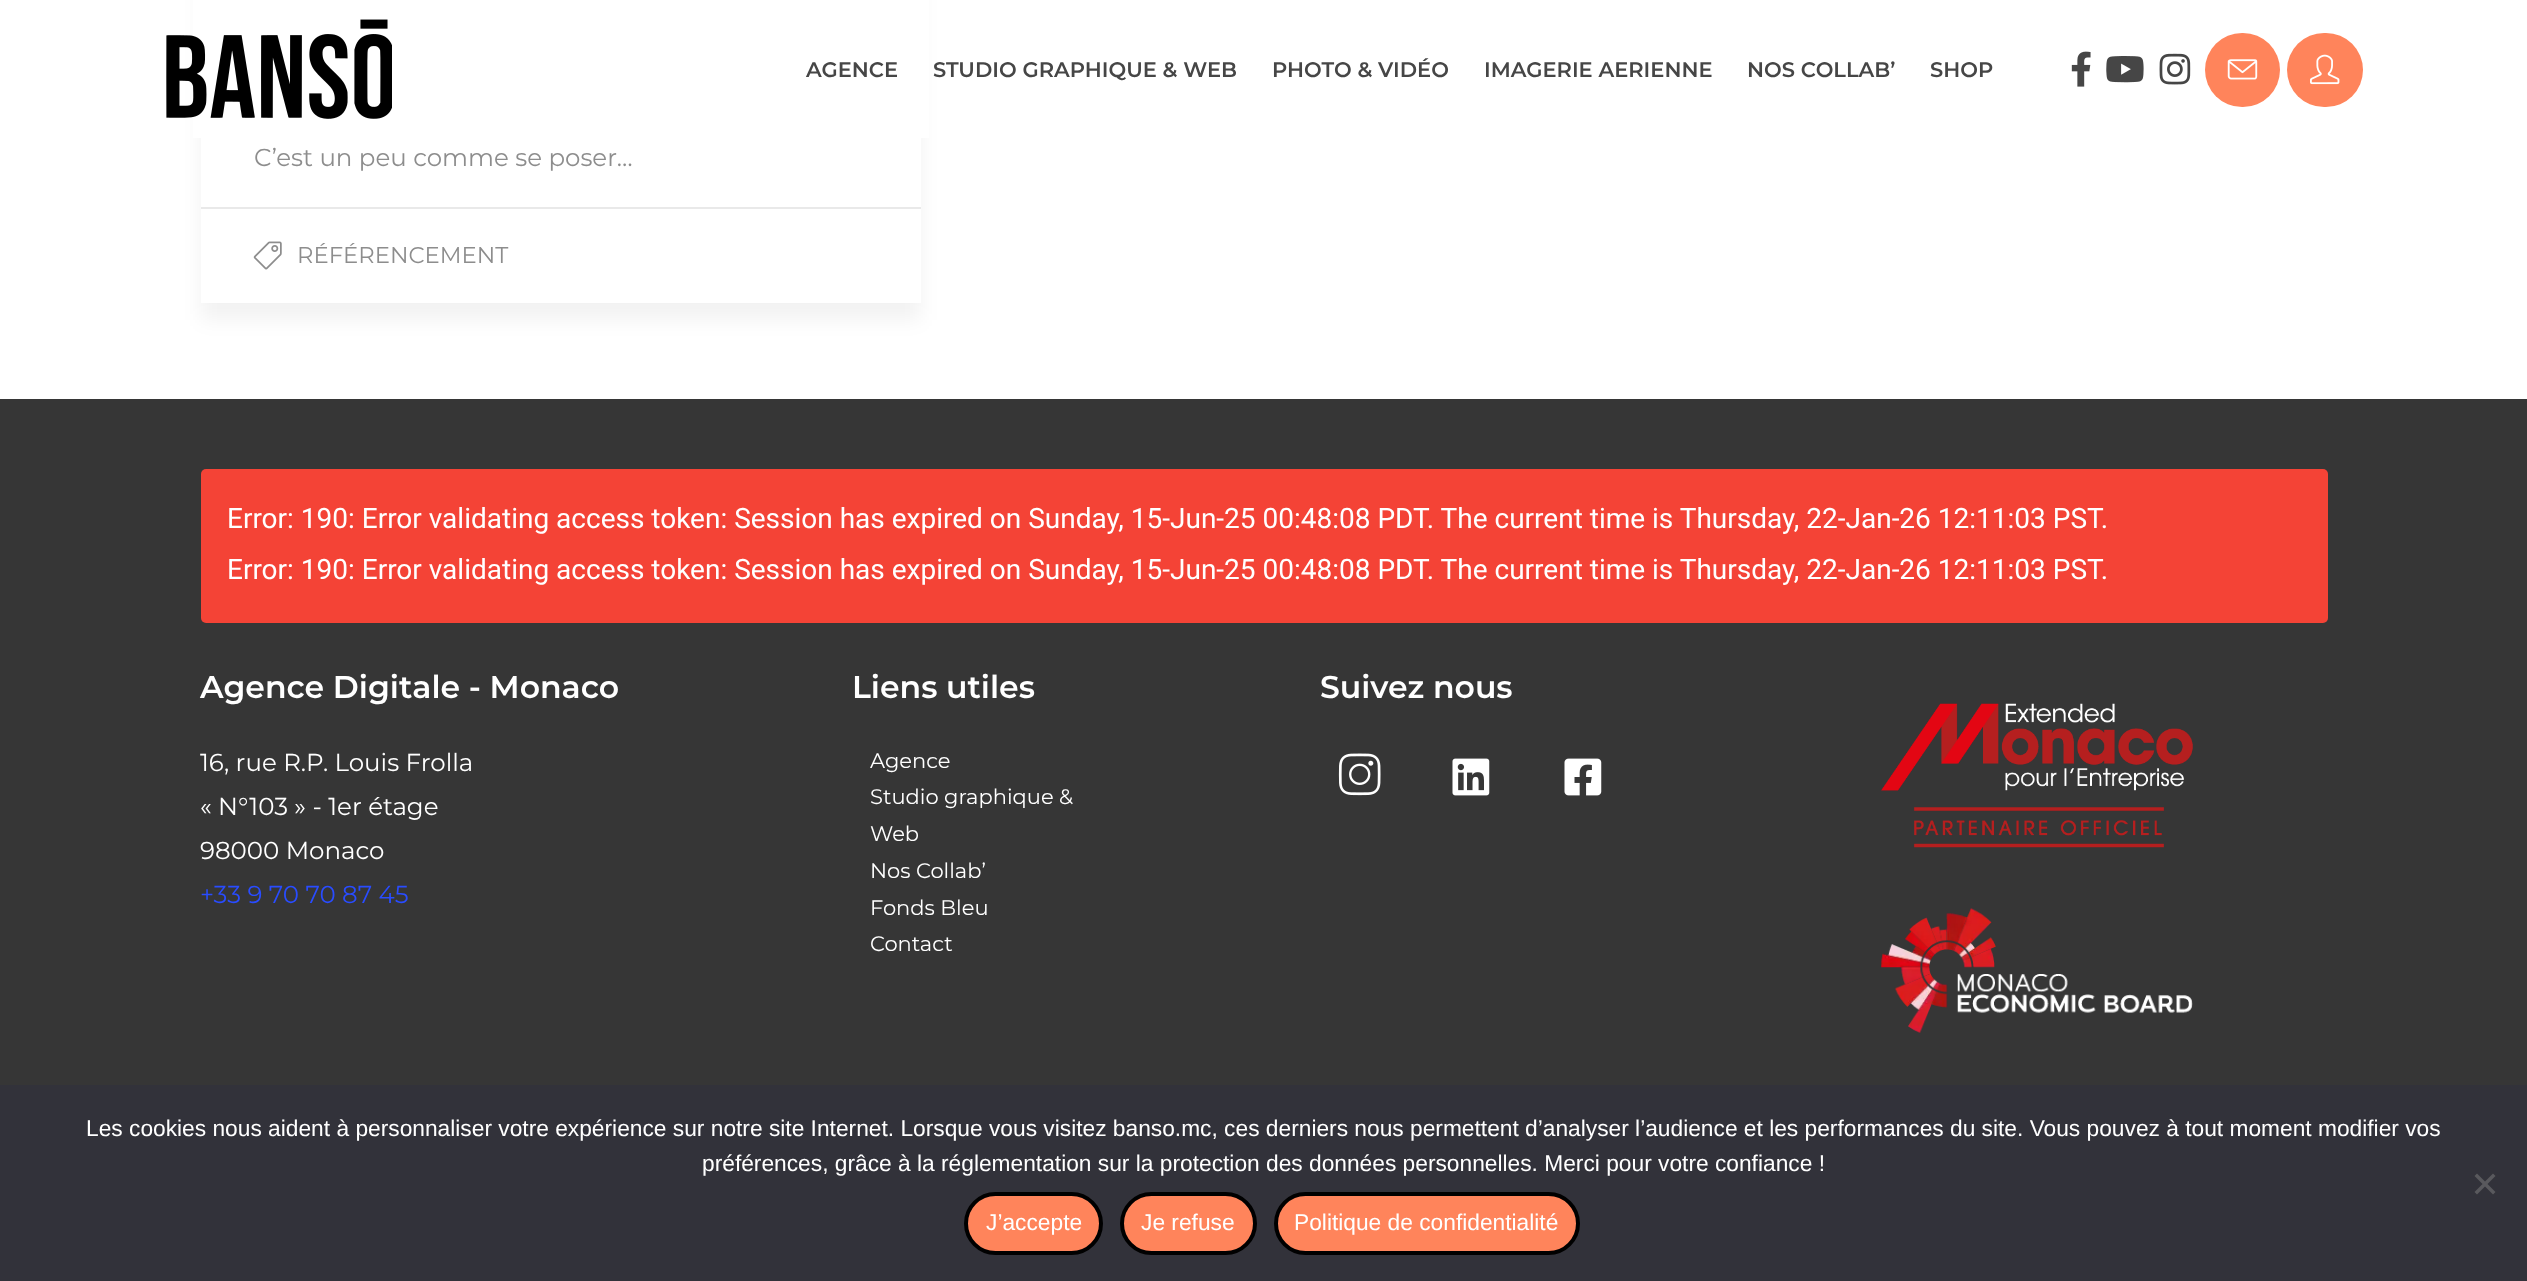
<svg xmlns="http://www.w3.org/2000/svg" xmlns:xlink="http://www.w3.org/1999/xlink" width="2527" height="1281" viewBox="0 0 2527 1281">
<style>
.cls-1{font:600 21px Montserrat;fill:#464646}
.cls-2{font:24.5px Montserrat;fill:#8d8d8d}
.cls-3{font:22.75px Montserrat;fill:#8d8d8d}
.cls-4{font:28px Roboto;fill:#ffffff}
.cls-5{font:600 31.5px Montserrat;fill:#ffffff}
.cls-6{font:24.5px Montserrat;fill:#ffffff}
.cls-7{font:24.5px Montserrat;fill:#294cff}
.cls-8{font:21px Montserrat;fill:#ffffff}
.cls-9{font:22.75px Liberation Sans;fill:#ffffff}
</style>
<defs>
<clipPath id="clip1"><path d="M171 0H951V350H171ZM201-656H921V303H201Z" clip-rule="evenodd"/></clipPath>
</defs>
<rect width="100%" height="100%" fill="#ffffff"/>
<g clip-path="url(#clip1)">
<rect fill="#000000" fill-opacity="0.05" filter="blur(9.5px)" x="201" y="-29" width="720" height="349"/>
</g>
<rect fill="#ffffff" x="193" y="0" width="736" height="138"/>
<image xlink:href="image0.png" x="166" y="19" width="226" height="100"/>
<image xlink:href="image1.png" x="2071" y="51" width="20" height="36"/>
<image xlink:href="image2.png" x="2106" y="56" width="38" height="27"/>
<image xlink:href="image3.png" x="2159" y="53" width="32" height="32"/>
<rect fill="#ff845b" x="2205" y="33" width="75" height="74" rx="37"/>
<image xlink:href="image4.png" x="2227" y="59" width="31" height="21"/>
<rect fill="#ff845b" x="2287" y="33" width="76" height="74" rx="37"/>
<image xlink:href="image5.png" x="2310" y="54" width="30" height="31"/>
<rect fill="#e9e9e9" x="201" y="207" width="720" height="2"/>
<image xlink:href="image6.png" x="253" y="241" width="29" height="29"/>
<rect fill="#363636" x="0" y="399" width="2527" height="686"/>
<rect fill="#f44336" x="201" y="469" width="2127" height="154" rx="5"/>
<image xlink:href="image7.png" x="1338" y="753" width="43" height="43"/>
<image xlink:href="image8.png" x="1452" y="758" width="38" height="38"/>
<image xlink:href="image9.png" x="1564" y="758" width="38" height="38"/>
<image xlink:href="image10.png" x="1881" y="703" width="312" height="145"/>
<image xlink:href="image11.png" x="1881" y="908" width="312" height="125"/>
<rect fill="#32323a" x="0" y="1085" width="2527" height="196"/>
<path fill="#59595d" d="M2493 1173.5L2495.5 1176L2477 1194.5L2474.5 1192Z"/>
<path fill="#59595d" d="M2474.5 1176L2477 1173.5L2495.5 1192L2493 1194.5Z"/>
<rect fill="#ff845b" stroke="#000000" stroke-width="4" x="966" y="1194" width="135" height="59" rx="29.5"/>
<rect fill="#ff845b" stroke="#000000" stroke-width="4" x="1122" y="1194" width="133" height="59" rx="29.5"/>
<rect fill="#ff845b" stroke="#000000" stroke-width="4" x="1276" y="1194" width="302" height="59" rx="29.5"/>
<text class="cls-1" x="806" y="77">AGENCE</text>
<text class="cls-1" x="933" y="77">STUDIO GRAPHIQUE &amp; WEB</text>
<text class="cls-1" x="1272" y="77">PHOTO &amp; VIDÉO</text>
<text class="cls-1" x="1484" y="77">IMAGERIE AERIENNE</text>
<text class="cls-1" x="1747" y="77">NOS COLLAB’</text>
<text class="cls-1" x="1930" y="77">SHOP</text>
<text class="cls-2" x="254" y="166">C’est un peu comme se poser…</text>
<text class="cls-3" x="297" y="263">RÉFÉRENCEMENT</text>
<text class="cls-4"><tspan x="227" y="528">Error: 190: Error validating access token: Session has expired on Sunday, 15-Jun-25 00:48:08 PDT. The current time is Thursday, 22-Jan-26 12:11:03 PST.</tspan><tspan x="227" y="579">Error: 190: Error validating access token: Session has expired on Sunday, 15-Jun-25 00:48:08 PDT. The current time is Thursday, 22-Jan-26 12:11:03 PST.</tspan></text>
<text class="cls-5" x="200" y="698">Agence Digitale - Monaco</text>
<text class="cls-6"><tspan x="200" y="771">16, rue R.P. Louis Frolla</tspan><tspan x="200" y="815">« N°103 » - 1er étage</tspan><tspan x="200" y="859">98000 Monaco</tspan></text>
<text class="cls-7" x="200" y="903">+33 9 70 70 87 45</text>
<text class="cls-5" x="852" y="698">Liens utiles</text>
<text class="cls-8"><tspan x="870" y="768">Agence</tspan><tspan x="870" y="804">Studio graphique &amp;</tspan><tspan x="870" y="841">Web</tspan><tspan x="870" y="878">Nos Collab’</tspan><tspan x="870" y="915">Fonds Bleu</tspan><tspan x="870" y="951">Contact</tspan></text>
<text class="cls-5" x="1320" y="698">Suivez nous</text>
<text class="cls-9" x="86" y="1136">Les cookies nous aident à personnaliser votre expérience sur notre site Internet. Lorsque vous visitez banso.mc, ces derniers nous permettent d’analyser l’audience et les performances du site. Vous pouvez à tout moment modifier vos</text>
<text class="cls-9" x="702" y="1171">préférences, grâce à la réglementation sur la protection des données personnelles. Merci pour votre confiance !</text>
<text class="cls-9" x="986" y="1230">J’accepte</text>
<text class="cls-9" x="1141" y="1230">Je refuse</text>
<text class="cls-9" x="1294" y="1230">Politique de confidentialité</text>
</svg>
